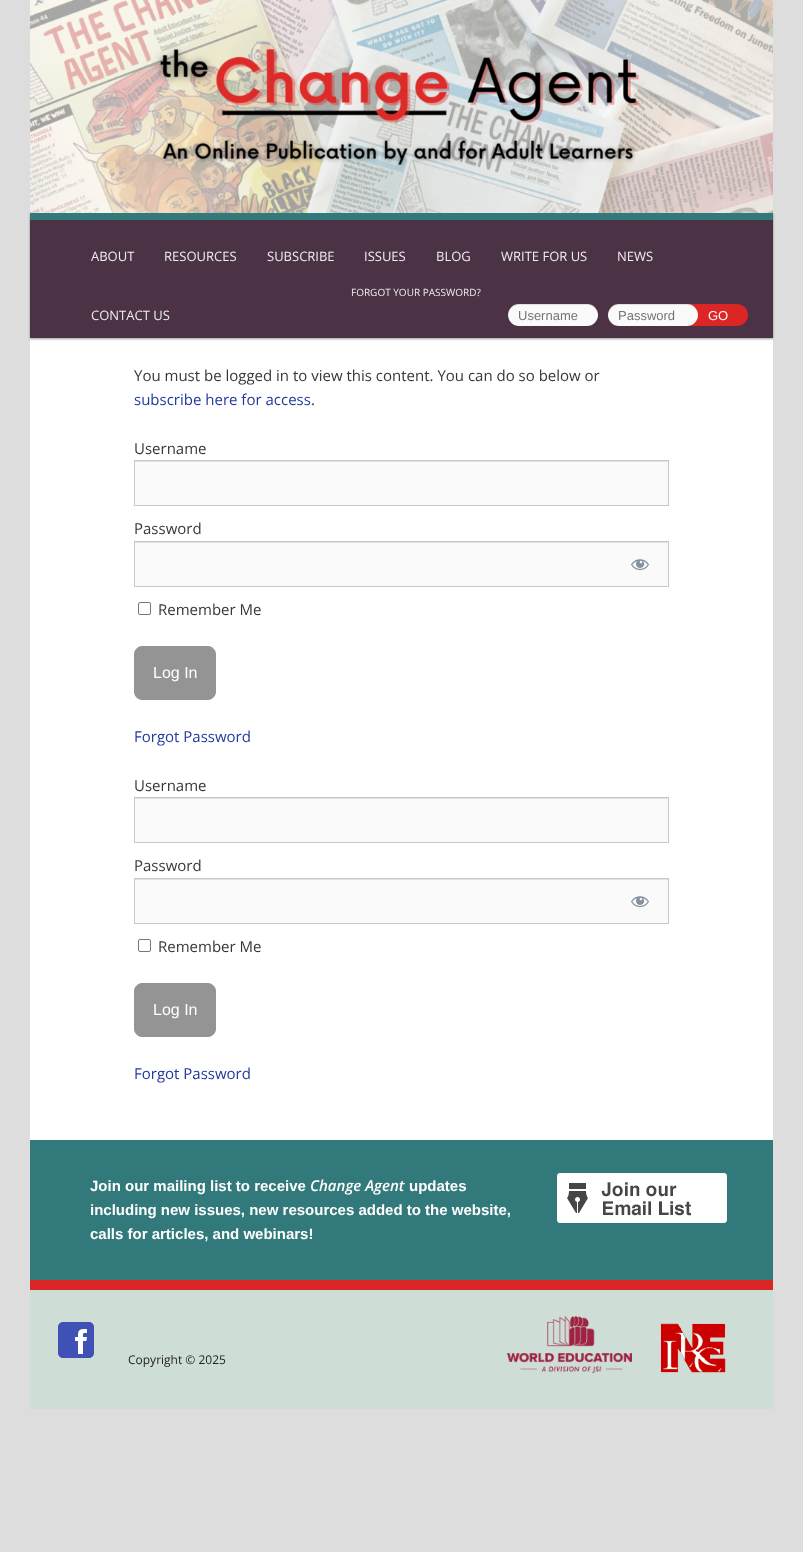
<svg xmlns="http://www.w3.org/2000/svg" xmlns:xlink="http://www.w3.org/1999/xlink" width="803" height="1552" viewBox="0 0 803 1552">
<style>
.cls-1{font:13px Open Sans;fill:#eeeeee}
.cls-2{font:10px Open Sans;fill:#eeeeee}
.cls-3{font:13px Liberation Sans;fill:#757575}
.cls-4{font:13px Liberation Sans;fill:#ffffff}
.cls-5{font:15px Open Sans;fill:#373737}
.cls-6{font:15px Open Sans;fill:#20399d}
.cls-7{font:16px Liberation Sans;fill:#ffffff}
.cls-8{font:bold 15px Liberation Sans;fill:#ffffff}
.cls-9{font:italic 600 15px Open Sans;fill:#ffffff}
.cls-10{font:12px Open Sans;fill:#222222}
</style>
<rect width="100%" height="100%" fill="#dddddd"/>
<rect fill="#ffffff" x="30" y="338" width="743" height="802"/>
<rect fill="#000000" fill-opacity="0.4" filter="blur(1px)" x="30" y="214" width="743" height="125"/>
<image xlink:href="image0.png" x="30" y="0" width="743" height="213"/>
<rect fill="#4c3245" x="30" y="220" width="743" height="118"/>
<rect fill="#32797b" x="30" y="213" width="743" height="7"/>
<rect fill="#fafafa" x="508" y="304" width="90" height="22" rx="11"/>
<path fill="#000000" fill-opacity="0.1" d="M519 305H587C593 305 598 310 598 316C599 302 584 304 576 304H530C522 304 507 302 508 316C508 310 513 305 519 305Z"/>
<path fill="#dc2625" d="M688 304H737C743 304 748 309 748 315C748 321 743 326 737 326H688Z"/>
<rect fill="#fafafa" x="608" y="304" width="90" height="22" rx="11"/>
<path fill="#000000" fill-opacity="0.1" d="M619 305H687C693 305 698 310 698 316C699 302 684 304 676 304H630C622 304 607 302 608 316C608 310 613 305 619 305Z"/>
<rect fill="#fafafa" x="135" y="462" width="533" height="43"/>
<rect fill="#e1e1e1" x="135" y="461" width="533" height="1"/>
<rect fill="none" stroke="#c8c8c8" x="134.5" y="460.5" width="534" height="45"/>
<rect fill="#fafafa" x="135" y="543" width="533" height="43"/>
<rect fill="#e1e1e1" x="135" y="542" width="533" height="1"/>
<rect fill="none" stroke="#c8c8c8" x="134.5" y="541.5" width="534" height="45"/>
<image xlink:href="image1.png" x="631" y="559" width="18" height="12"/>
<rect fill="none" stroke="#767676" x="138.5" y="602.5" width="12" height="12" rx="1.5"/>
<rect fill="#949494" stroke="#949494" x="134.5" y="646.5" width="81" height="53" rx="7.5"/>
<rect fill="#fafafa" x="135" y="799" width="533" height="43"/>
<rect fill="#e1e1e1" x="135" y="798" width="533" height="1"/>
<rect fill="none" stroke="#c8c8c8" x="134.5" y="797.5" width="534" height="45"/>
<rect fill="#fafafa" x="135" y="880" width="533" height="43"/>
<rect fill="#e1e1e1" x="135" y="879" width="533" height="1"/>
<rect fill="none" stroke="#c8c8c8" x="134.5" y="878.5" width="534" height="45"/>
<image xlink:href="image1.png" x="631" y="896" width="18" height="12"/>
<rect fill="none" stroke="#767676" x="138.5" y="939.5" width="12" height="12" rx="1.5"/>
<rect fill="#949494" stroke="#949494" x="134.5" y="983.5" width="81" height="53" rx="7.5"/>
<rect fill="#32797b" x="30" y="1140" width="743" height="140"/>
<image xlink:href="image2.png" x="557" y="1173" width="170" height="50"/>
<rect fill="#cfddd7" x="30" y="1290" width="743" height="119"/>
<rect fill="#dc2625" x="30" y="1280" width="743" height="10"/>
<image xlink:href="image3.png" x="58" y="1322" width="36" height="36"/>
<image xlink:href="image4.png" x="507" y="1316" width="125" height="57"/>
<image xlink:href="image5.png" x="660" y="1323" width="66" height="50"/>
<text class="cls-1" x="91" y="261">ABOUT</text>
<text class="cls-1" x="164" y="261">RESOURCES</text>
<text class="cls-1" x="267" y="261">SUBSCRIBE</text>
<text class="cls-1" x="364" y="261">ISSUES</text>
<text class="cls-1" x="436" y="261">BLOG</text>
<text class="cls-1" x="501" y="261">WRITE FOR US</text>
<text class="cls-1" x="617" y="261">NEWS</text>
<text class="cls-1" x="91" y="320">CONTACT US</text>
<text class="cls-2" x="351" y="296">FORGOT YOUR PASSWORD?</text>
<text class="cls-3" x="518" y="320">Username</text>
<text class="cls-3" x="618" y="320">Password</text>
<text class="cls-4" x="708" y="320">GO</text>
<text class="cls-5" x="134" y="381">You must be logged in to view this content. You can do so below or</text>
<text class="cls-6" x="134" y="405">subscribe here for access</text>
<text class="cls-5" x="311" y="405">.</text>
<text class="cls-5" x="134" y="454">Username</text>
<text class="cls-5" x="134" y="534">Password</text>
<text class="cls-5" x="158" y="615">Remember Me</text>
<text class="cls-7" x="153" y="678">Log In</text>
<text class="cls-6" x="134" y="742">Forgot Password</text>
<text class="cls-5" x="134" y="791">Username</text>
<text class="cls-5" x="134" y="871">Password</text>
<text class="cls-5" x="158" y="952">Remember Me</text>
<text class="cls-7" x="153" y="1015">Log In</text>
<text class="cls-6" x="134" y="1079">Forgot Password</text>
<text class="cls-8" x="90" y="1191">Join our mailing list to receive</text>
<text class="cls-9" x="310" y="1191">Change Agent</text>
<text class="cls-8" x="409" y="1191">updates</text>
<text class="cls-8"><tspan x="90" y="1215">including new issues, new resources added to the website,</tspan><tspan x="90" y="1239">calls for articles, and webinars!</tspan></text>
<text class="cls-10" x="128" y="1364">Copyright © 2025</text>
</svg>
